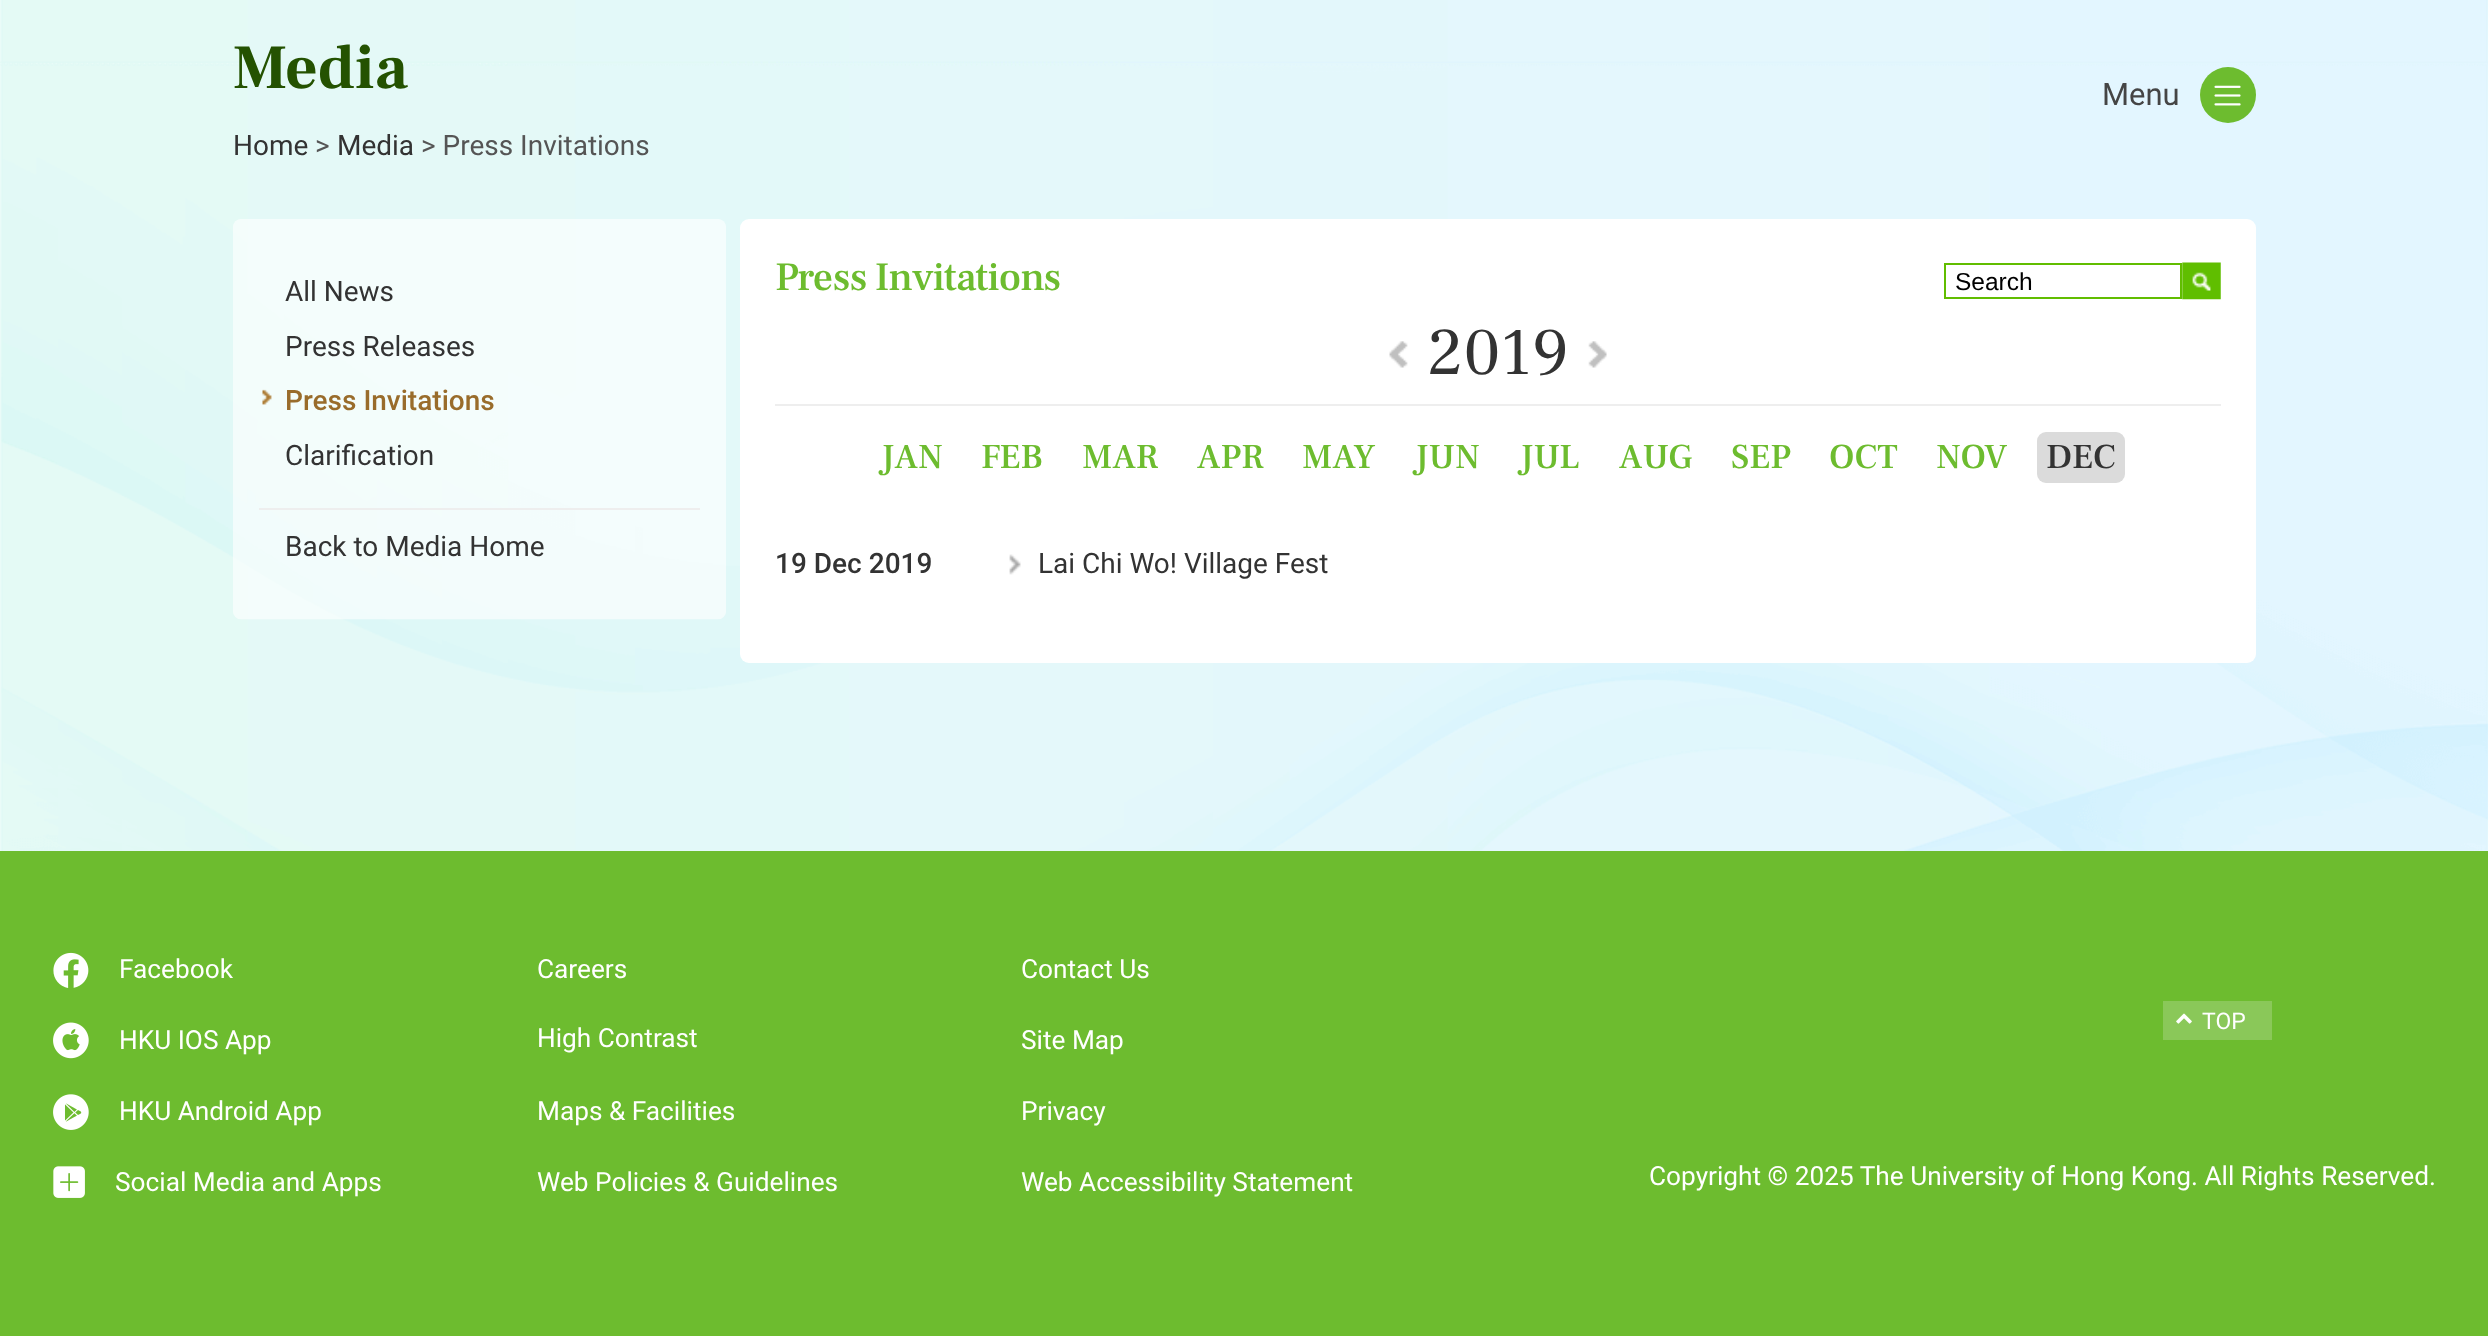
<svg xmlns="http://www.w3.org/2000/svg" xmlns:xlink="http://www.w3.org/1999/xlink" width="2488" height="1336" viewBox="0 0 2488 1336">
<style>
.cls-1{font:bold 63px Frank Ruhl Libre;fill:#245201}
.cls-2{font:28px Roboto;fill:#333333}
.cls-3{font:28px Roboto;fill:#555555}
.cls-4{font:31px Roboto;fill:#454545}
.cls-5{font:500 28px Roboto;fill:#996c2b}
.cls-6{font:500 40.25px Frank Ruhl Libre;letter-spacing:-0.9px;fill:#6dbc2f}
.cls-7{font:24.5px Liberation Sans;fill:#000000}
.cls-8{font:66.5px Frank Ruhl Libre;fill:#333333}
.cls-9{font:500 35px Frank Ruhl Libre;fill:#6dbc2f}
.cls-10{font:500 35px Frank Ruhl Libre;fill:#333333}
.cls-11{font:500 28px Roboto;fill:#333333}
.cls-12{font:23px Roboto;fill:#ffffff}
.cls-13{font:26.25px Roboto;fill:#ffffff}
</style>
<rect width="100%" height="100%" fill="#ffffff"/>
<image xlink:href="image0.png" x="0" y="0" width="2488" height="851"/>
<circle fill="#6dbc2f" cx="2228" cy="95" r="28"/>
<image xlink:href="image1.png" x="2214" y="85" width="27" height="21"/>
<image xlink:href="image2.png" x="233" y="219" width="493" height="401"/>
<image xlink:href="image3.png" x="262" y="389" width="10" height="16"/>
<rect fill="#eeeeee" x="259" y="508" width="441" height="2"/>
<rect fill="#ffffff" x="740" y="219" width="1516" height="444" rx="9"/>
<rect fill="none" stroke="#61bd00" stroke-width="2" x="1945" y="264" width="236" height="34"/>
<image xlink:href="image4.png" x="2182" y="262" width="39" height="38"/>
<rect fill="#eeeeee" x="775" y="404" width="1446" height="2"/>
<image xlink:href="image5.png" x="1389" y="341" width="19" height="27"/>
<image xlink:href="image6.png" x="1588" y="341" width="19" height="27"/>
<rect fill="#dbdbdb" x="2037" y="432" width="88" height="51" rx="9"/>
<image xlink:href="image7.png" x="1009" y="554" width="12" height="21"/>
<rect fill="#6dbc2f" x="0" y="851" width="2488" height="485"/>
<rect fill="#8ac859" x="2163" y="1001" width="109" height="39"/>
<image xlink:href="image8.png" x="2176" y="1013" width="16" height="11"/>
<image xlink:href="image9.png" x="53" y="952" width="36" height="36"/>
<image xlink:href="image10.png" x="53" y="1022" width="36" height="37"/>
<image xlink:href="image11.png" x="53" y="1094" width="36" height="36"/>
<image xlink:href="image12.png" x="53" y="1166" width="32" height="32"/>
<text class="cls-1" x="233" y="88">Media</text>
<text class="cls-2" x="233" y="155">Home</text>
<text class="cls-3" x="315" y="155">&gt;</text>
<text class="cls-2" x="337" y="155">Media</text>
<text class="cls-3" x="421" y="155">&gt; Press Invitations</text>
<text class="cls-4" x="2102" y="105">Menu</text>
<text class="cls-2"><tspan x="285" y="301">All News</tspan><tspan x="285" y="356">Press Releases</tspan></text>
<text class="cls-5" x="285" y="410">Press Invitations</text>
<text class="cls-2" x="285" y="465">Clarification</text>
<text class="cls-2" x="285" y="556">Back to Media Home</text>
<text class="cls-6" x="775" y="290">Press Invitations</text>
<text class="cls-7" x="1955" y="290">Search</text>
<text class="cls-8" x="1427" y="374">2019</text>
<text class="cls-9" x="880" y="468">JAN</text>
<text class="cls-9" x="981" y="468">FEB</text>
<text class="cls-9" x="1082" y="468">MAR</text>
<text class="cls-9" x="1197" y="468">APR</text>
<text class="cls-9" x="1302" y="468">MAY</text>
<text class="cls-9" x="1414" y="468">JUN</text>
<text class="cls-9" x="1519" y="468">JUL</text>
<text class="cls-9" x="1619" y="468">AUG</text>
<text class="cls-9" x="1731" y="468">SEP</text>
<text class="cls-9" x="1829" y="468">OCT</text>
<text class="cls-9" x="1936" y="468">NOV</text>
<text class="cls-10" x="2046" y="468">DEC</text>
<text class="cls-11" x="775" y="573">19 Dec 2019</text>
<text class="cls-2" x="1038" y="573">Lai Chi Wo! Village Fest</text>
<text class="cls-12" x="2202" y="1029">TOP</text>
<text class="cls-13" x="119" y="978">Facebook</text>
<text class="cls-13" x="119" y="1049">HKU IOS App</text>
<text class="cls-13" x="119" y="1120">HKU Android App</text>
<text class="cls-13" x="115" y="1191">Social Media and Apps</text>
<text class="cls-13" x="537" y="978">Careers</text>
<text class="cls-13" x="537" y="1047">High Contrast</text>
<text class="cls-13" x="537" y="1120">Maps &amp; Facilities</text>
<text class="cls-13" x="537" y="1191">Web Policies &amp; Guidelines</text>
<text class="cls-13" x="1021" y="978">Contact Us</text>
<text class="cls-13" x="1021" y="1049">Site Map</text>
<text class="cls-13" x="1021" y="1120">Privacy</text>
<text class="cls-13" x="1021" y="1191">Web Accessibility Statement</text>
<text class="cls-13" x="1649" y="1185">Copyright © 2025 The University of Hong Kong. All Rights Reserved.</text>
</svg>
